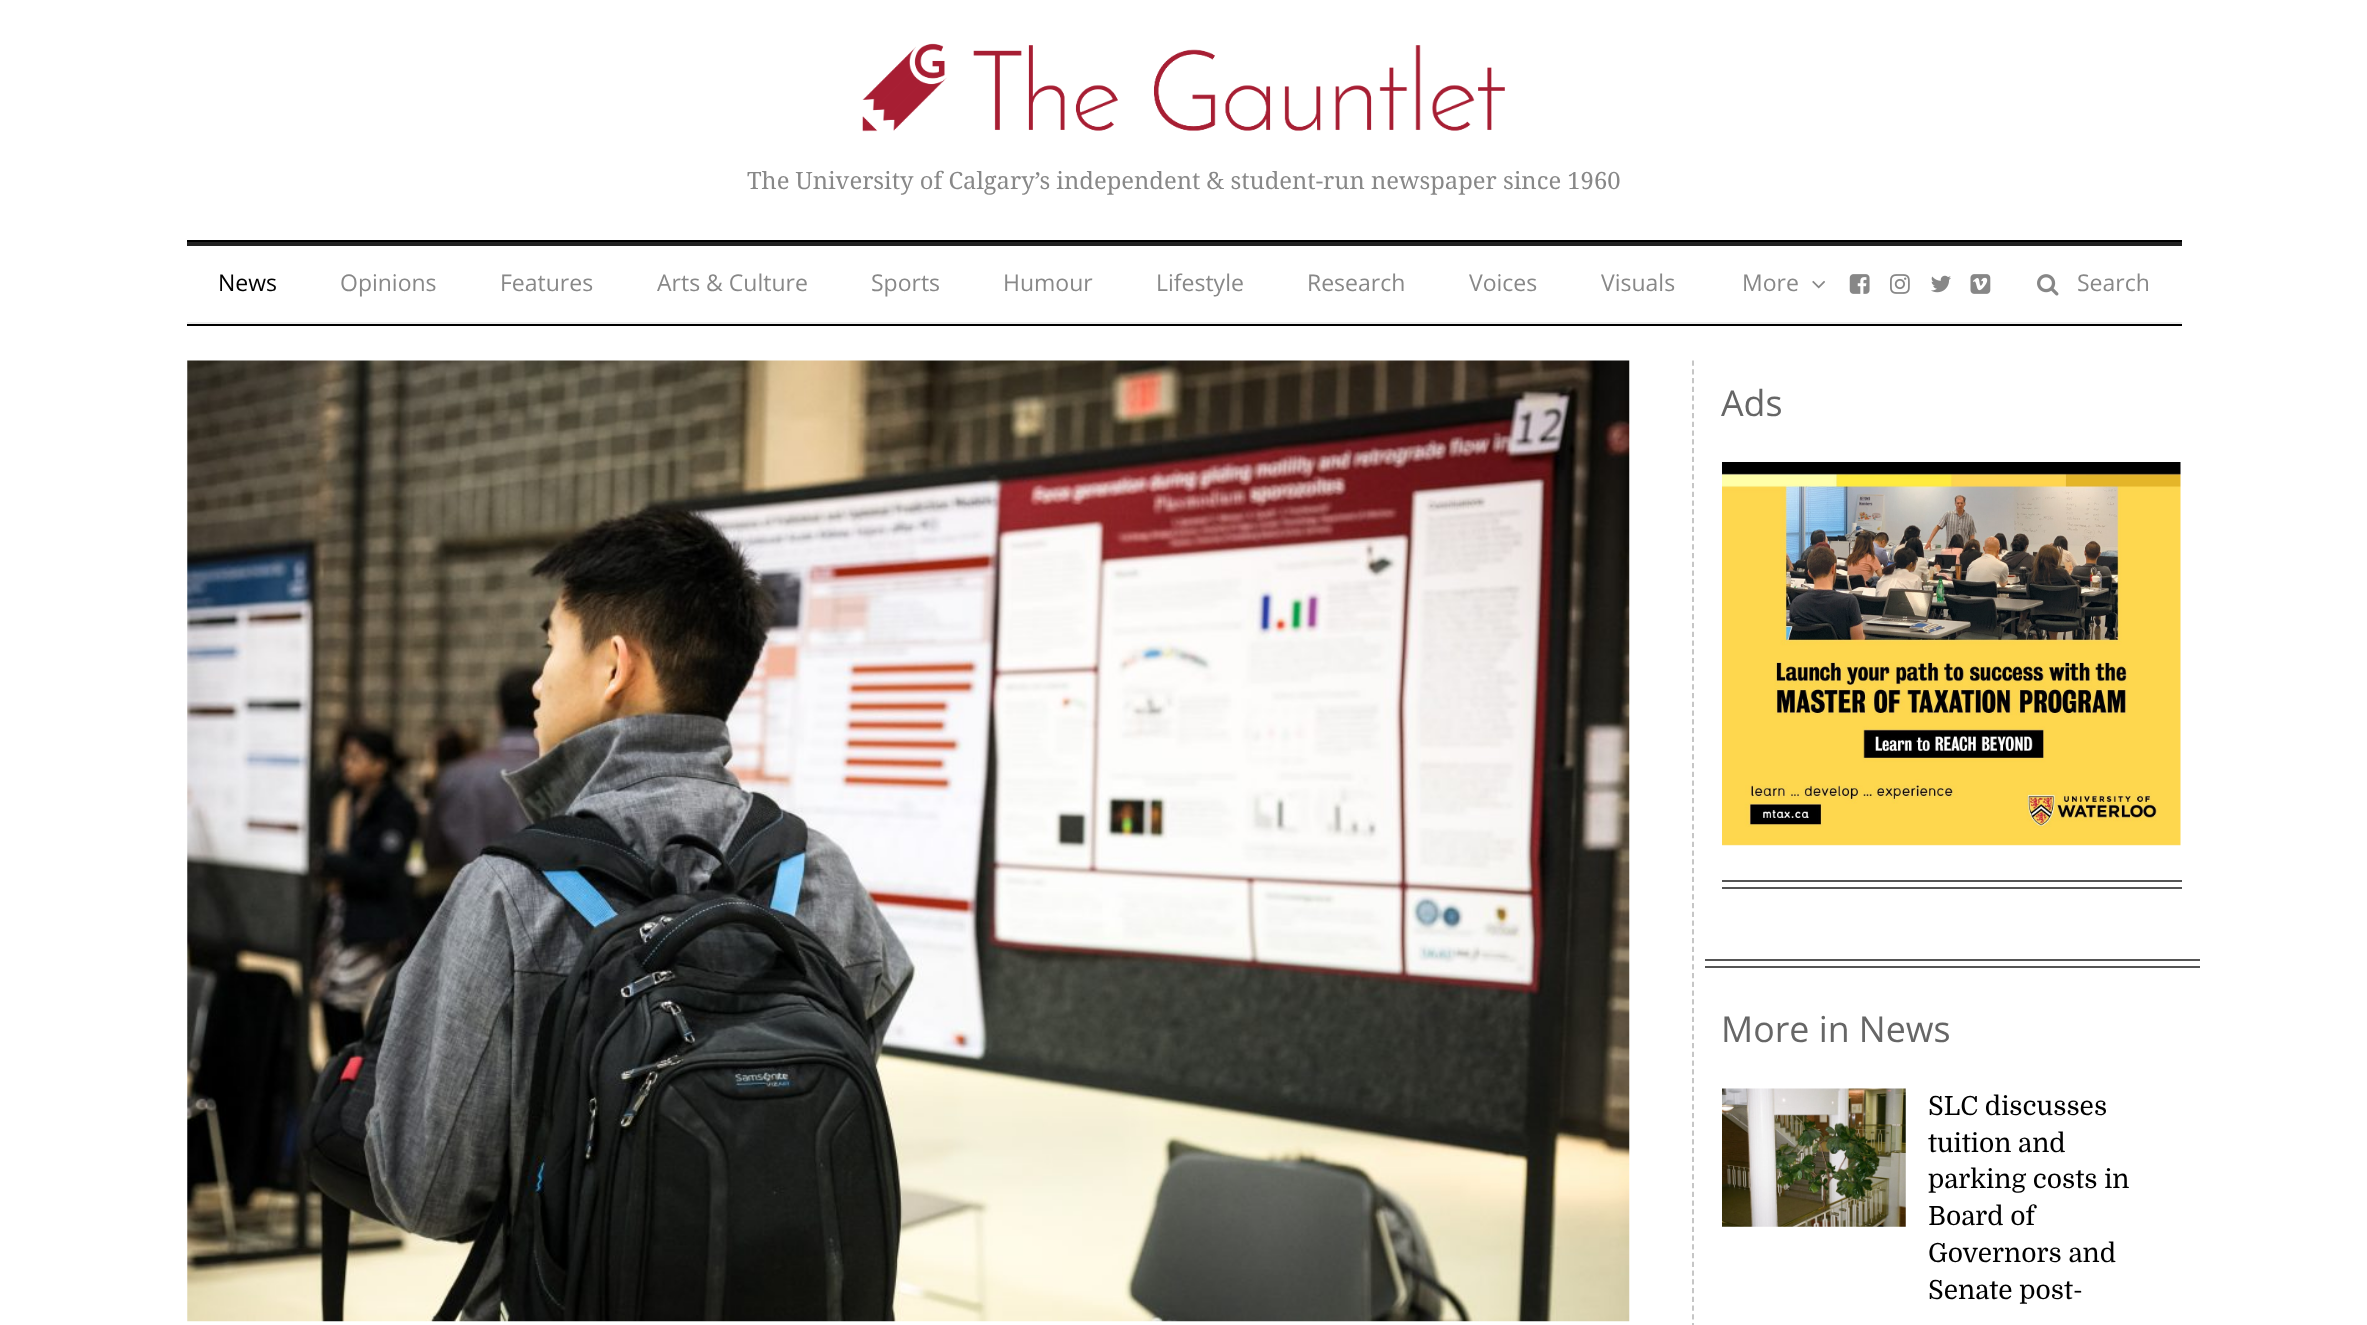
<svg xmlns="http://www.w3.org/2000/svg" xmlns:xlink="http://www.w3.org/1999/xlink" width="2367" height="1325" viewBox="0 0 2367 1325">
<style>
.cls-1{font:23.8px Droid Serif;fill:#888888}
.cls-2{font:23px Open Sans;fill:#000000}
.cls-3{font:23px Open Sans;fill:#888888}
.cls-4{font:35.75px Open Sans;fill:#666666}
.cls-5{font:26.25px Domine;fill:#000000}
</style>
<rect width="100%" height="100%" fill="#ffffff"/>
<rect fill="#000000" x="187" y="240" width="1995" height="2"/>
<image xlink:href="image0.png" x="862" y="43" width="643" height="89"/>
<rect fill="#000000" x="187" y="324" width="1995" height="2"/>
<rect fill="#222222" x="187" y="242" width="1995" height="4"/>
<rect fill="#eeeeee" x="187" y="322" width="1995" height="2"/>
<image xlink:href="image1.png" x="1812" y="280" width="13" height="9"/>
<image xlink:href="image2.png" x="1849" y="274" width="21" height="20"/>
<image xlink:href="image3.png" x="1890" y="274" width="20" height="20"/>
<image xlink:href="image4.png" x="1931" y="275" width="20" height="18"/>
<image xlink:href="image5.png" x="1970" y="274" width="21" height="20"/>
<image xlink:href="image6.png" x="2037" y="274" width="22" height="22"/>
<image xlink:href="image7.png" x="187" y="360" width="1443" height="962"/>
<path fill="none" stroke="#c0c0c0" stroke-width="1.8" stroke-dasharray="5.25 3.5" d="M1693 360.5V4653"/>
<image xlink:href="image8.png" x="1722" y="462" width="459" height="384"/>
<rect fill="#555555" x="1722" y="880" width="460" height="2"/>
<rect fill="#555555" x="1722" y="887" width="460" height="2"/>
<rect fill="#555555" x="1705" y="959" width="495" height="2"/>
<rect fill="#555555" x="1705" y="966" width="495" height="2"/>
<image xlink:href="image9.png" x="1722" y="1088" width="184" height="139"/>
<text class="cls-1" x="747" y="189">The University of Calgary’s independent &amp; student-run newspaper since 1960</text>
<text class="cls-2" x="218" y="291">News</text>
<text class="cls-3" x="340" y="291">Opinions</text>
<text class="cls-3" x="500" y="291">Features</text>
<text class="cls-3" x="657" y="291">Arts &amp; Culture</text>
<text class="cls-3" x="871" y="291">Sports</text>
<text class="cls-3" x="1003" y="291">Humour</text>
<text class="cls-3" x="1156" y="291">Lifestyle</text>
<text class="cls-3" x="1307" y="291">Research</text>
<text class="cls-3" x="1469" y="291">Voices</text>
<text class="cls-3" x="1601" y="291">Visuals</text>
<text class="cls-3" x="1742" y="291">More</text>
<text class="cls-3" x="2077" y="291">Search</text>
<text class="cls-4" x="1721" y="416">Ads</text>
<text class="cls-4" x="1721" y="1042">More in News</text>
<text class="cls-5"><tspan x="1928" y="1115">SLC discusses</tspan><tspan x="1928" y="1152">tuition and</tspan><tspan x="1928" y="1188">parking costs in</tspan><tspan x="1928" y="1225">Board of</tspan><tspan x="1928" y="1262">Governors and</tspan><tspan x="1928" y="1299">Senate post-</tspan></text>
</svg>
